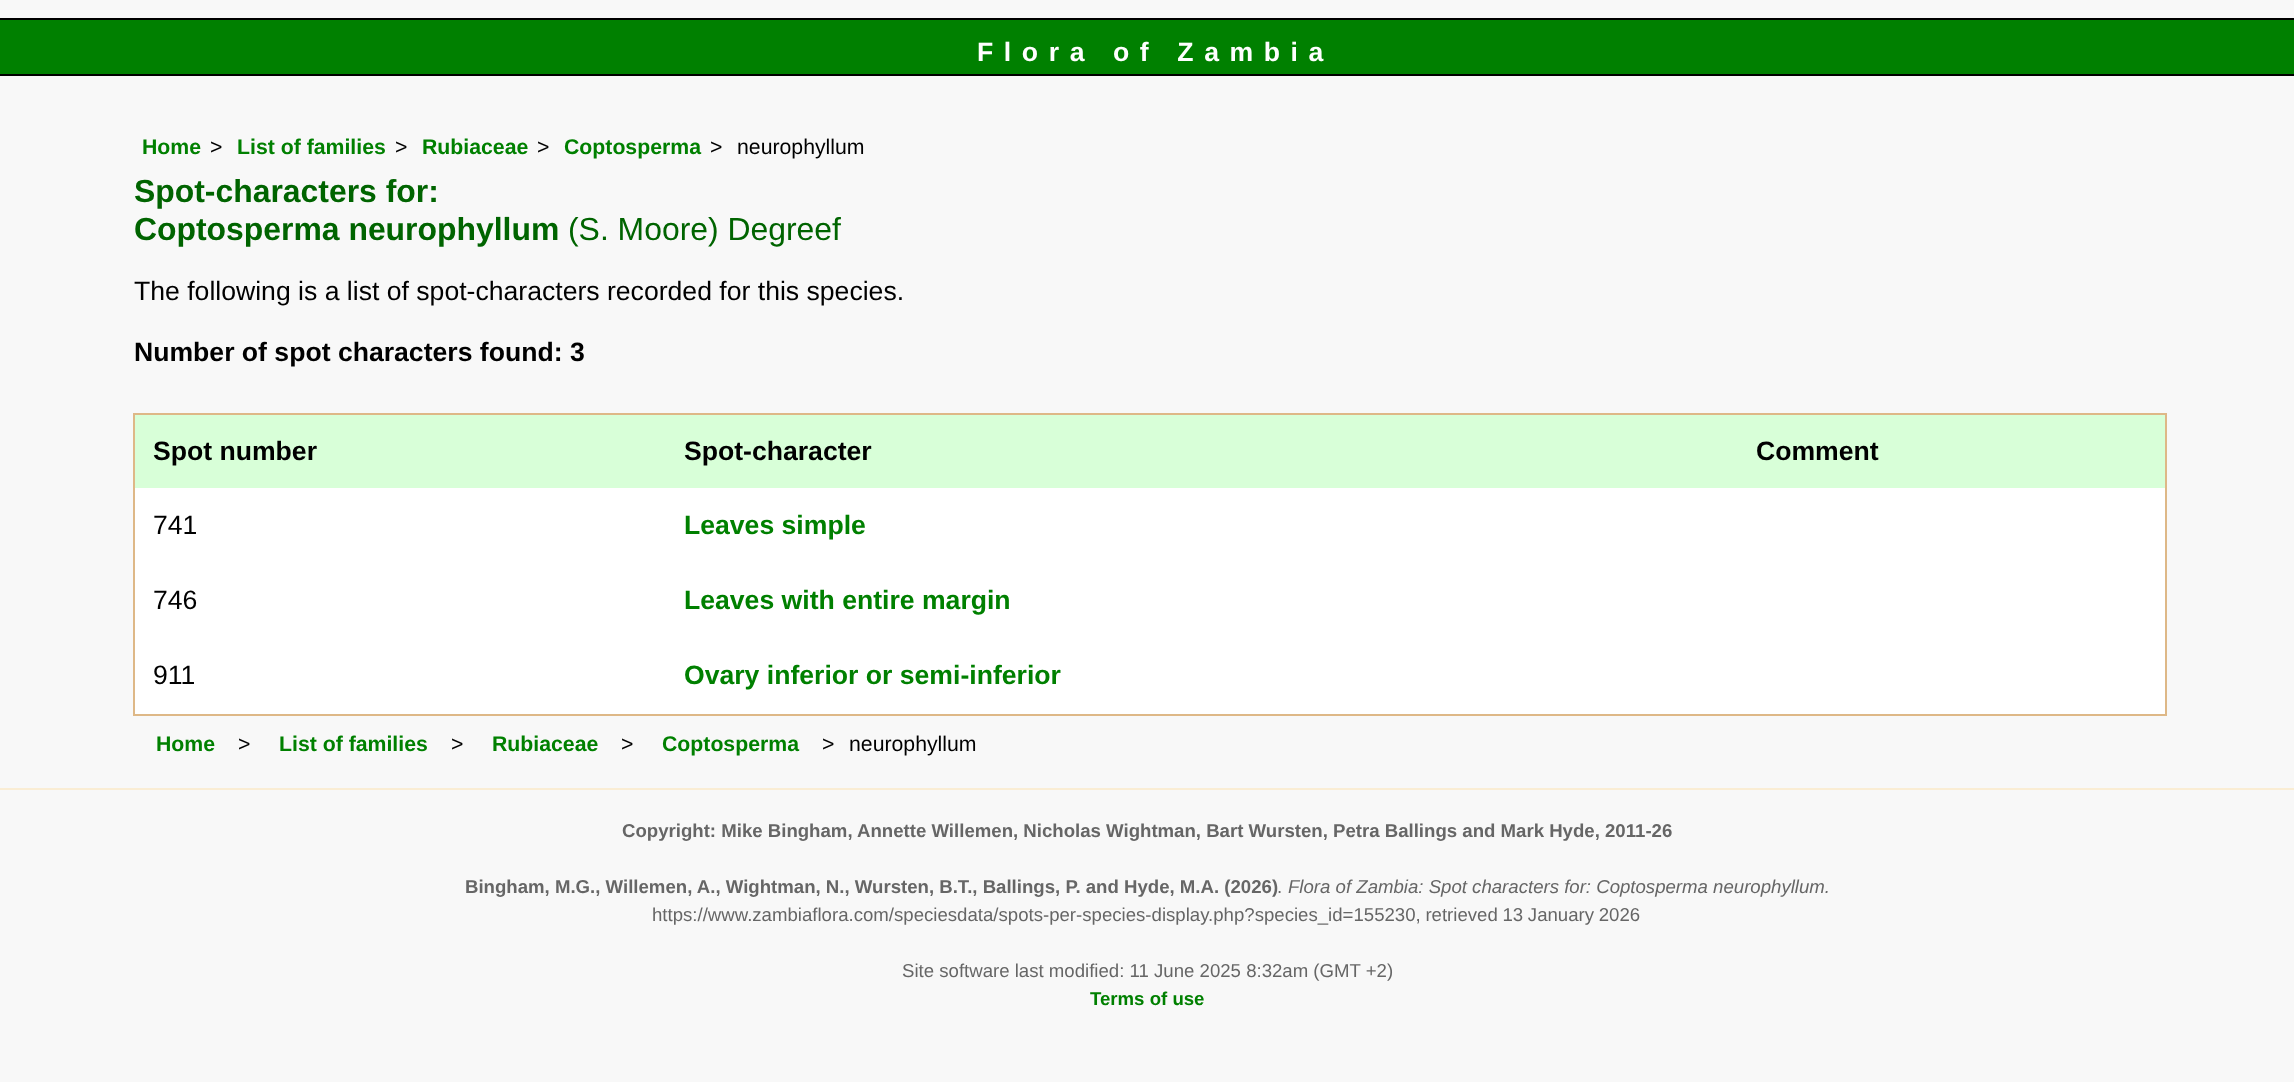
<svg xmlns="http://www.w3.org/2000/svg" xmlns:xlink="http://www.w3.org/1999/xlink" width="2294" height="1082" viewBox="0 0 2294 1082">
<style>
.cls-1{font:bold 26.6px Liberation Sans;letter-spacing:10.6px;fill:#ffffff}
.cls-2{font:bold 21.25px Liberation Sans;fill:#008000}
.cls-3{font:21.25px Liberation Sans;fill:#000000}
.cls-4{font:bold 31.9px Liberation Sans;fill:#006400}
.cls-5{font:31.9px Liberation Sans;fill:#006400}
.cls-6{font:26.6px Liberation Sans;fill:#000000}
.cls-7{font:bold 26.6px Liberation Sans;fill:#000000}
.cls-8{font:bold 26.6px Liberation Sans;fill:#008000}
.cls-9{font:bold 18.62px Liberation Sans;fill:#666666}
.cls-10{font:18.62px Liberation Sans;fill:#666666}
.cls-11{font:italic 18.62px Liberation Sans;fill:#666666}
.cls-12{font:bold 18.62px Liberation Sans;fill:#008000}
</style>
<rect width="100%" height="100%" fill="#f8f8f8"/>
<rect fill="#008000" x="0" y="20" width="2294" height="54"/>
<rect fill="#000000" x="0" y="18" width="2294" height="2"/>
<rect fill="#000000" x="0" y="74" width="2294" height="2"/>
<rect fill="#deb887" x="133" y="413" width="2034" height="2"/>
<rect fill="#deb887" x="2165" y="413" width="2" height="303"/>
<rect fill="#deb887" x="133" y="714" width="2034" height="2"/>
<rect fill="#deb887" x="133" y="413" width="2" height="303"/>
<rect fill="#d8ffd8" x="135" y="415" width="2030" height="73"/>
<rect fill="#ffffff" x="135" y="488" width="2030" height="226"/>
<rect fill="#faedd4" x="0" y="788" width="2294" height="2"/>
<text class="cls-1" x="977" y="61">Flora of Zambia</text>
<text class="cls-2" x="142" y="154">Home</text>
<text class="cls-3" x="210" y="154">&gt;</text>
<text class="cls-2" x="237" y="154">List of families</text>
<text class="cls-3" x="395" y="154">&gt;</text>
<text class="cls-2" x="422" y="154">Rubiaceae</text>
<text class="cls-3" x="537" y="154">&gt;</text>
<text class="cls-2" x="564" y="154">Coptosperma</text>
<text class="cls-3" x="710" y="154">&gt;</text>
<text class="cls-3" x="737" y="154">neurophyllum</text>
<text class="cls-4"><tspan x="134" y="202">Spot-characters for:</tspan><tspan x="134" y="240">Coptosperma neurophyllum</tspan></text>
<text class="cls-5" x="568" y="240">(S. Moore) Degreef</text>
<text class="cls-6" x="134" y="300">The following is a list of spot-characters recorded for this species.</text>
<text class="cls-7" x="134" y="361">Number of spot characters found: 3</text>
<text class="cls-7" x="153" y="460">Spot number</text>
<text class="cls-7" x="684" y="460">Spot-character</text>
<text class="cls-7" x="1756" y="460">Comment</text>
<text class="cls-6" x="153" y="534">741</text>
<text class="cls-8" x="684" y="534">Leaves simple</text>
<text class="cls-6" x="153" y="609">746</text>
<text class="cls-8" x="684" y="609">Leaves with entire margin</text>
<text class="cls-6" x="153" y="684">911</text>
<text class="cls-8" x="684" y="684">Ovary inferior or semi-inferior</text>
<text class="cls-2" x="156" y="751">Home</text>
<text class="cls-3" x="238" y="751">&gt;</text>
<text class="cls-2" x="279" y="751">List of families</text>
<text class="cls-3" x="451" y="751">&gt;</text>
<text class="cls-2" x="492" y="751">Rubiaceae</text>
<text class="cls-3" x="621" y="751">&gt;</text>
<text class="cls-2" x="662" y="751">Coptosperma</text>
<text class="cls-3" x="822" y="751">&gt;</text>
<text class="cls-3" x="849" y="751">neurophyllum</text>
<text class="cls-9" x="622" y="837">Copyright: Mike Bingham, Annette Willemen, Nicholas Wightman, Bart Wursten, Petra Ballings and Mark Hyde, 2011-26</text>
<text class="cls-9" x="465" y="893">Bingham, M.G., Willemen, A., Wightman, N., Wursten, B.T., Ballings, P. and Hyde, M.A. (2026)</text>
<text class="cls-10" x="1277" y="893">.</text>
<text class="cls-11" x="1288" y="893">Flora of Zambia: Spot characters for: Coptosperma neurophyllum.</text>
<text class="cls-10" x="652" y="921" word-spacing="-0.5">https://www.zambiaflora.com/speciesdata/spots-per-species-display.php?species_id=155230, retrieved 13 January 2026</text>
<text class="cls-10" x="902" y="977">Site software last modified: 11 June 2025 8:32am (GMT +2)</text>
<text class="cls-12" x="1090" y="1005">Terms of use</text>
</svg>
